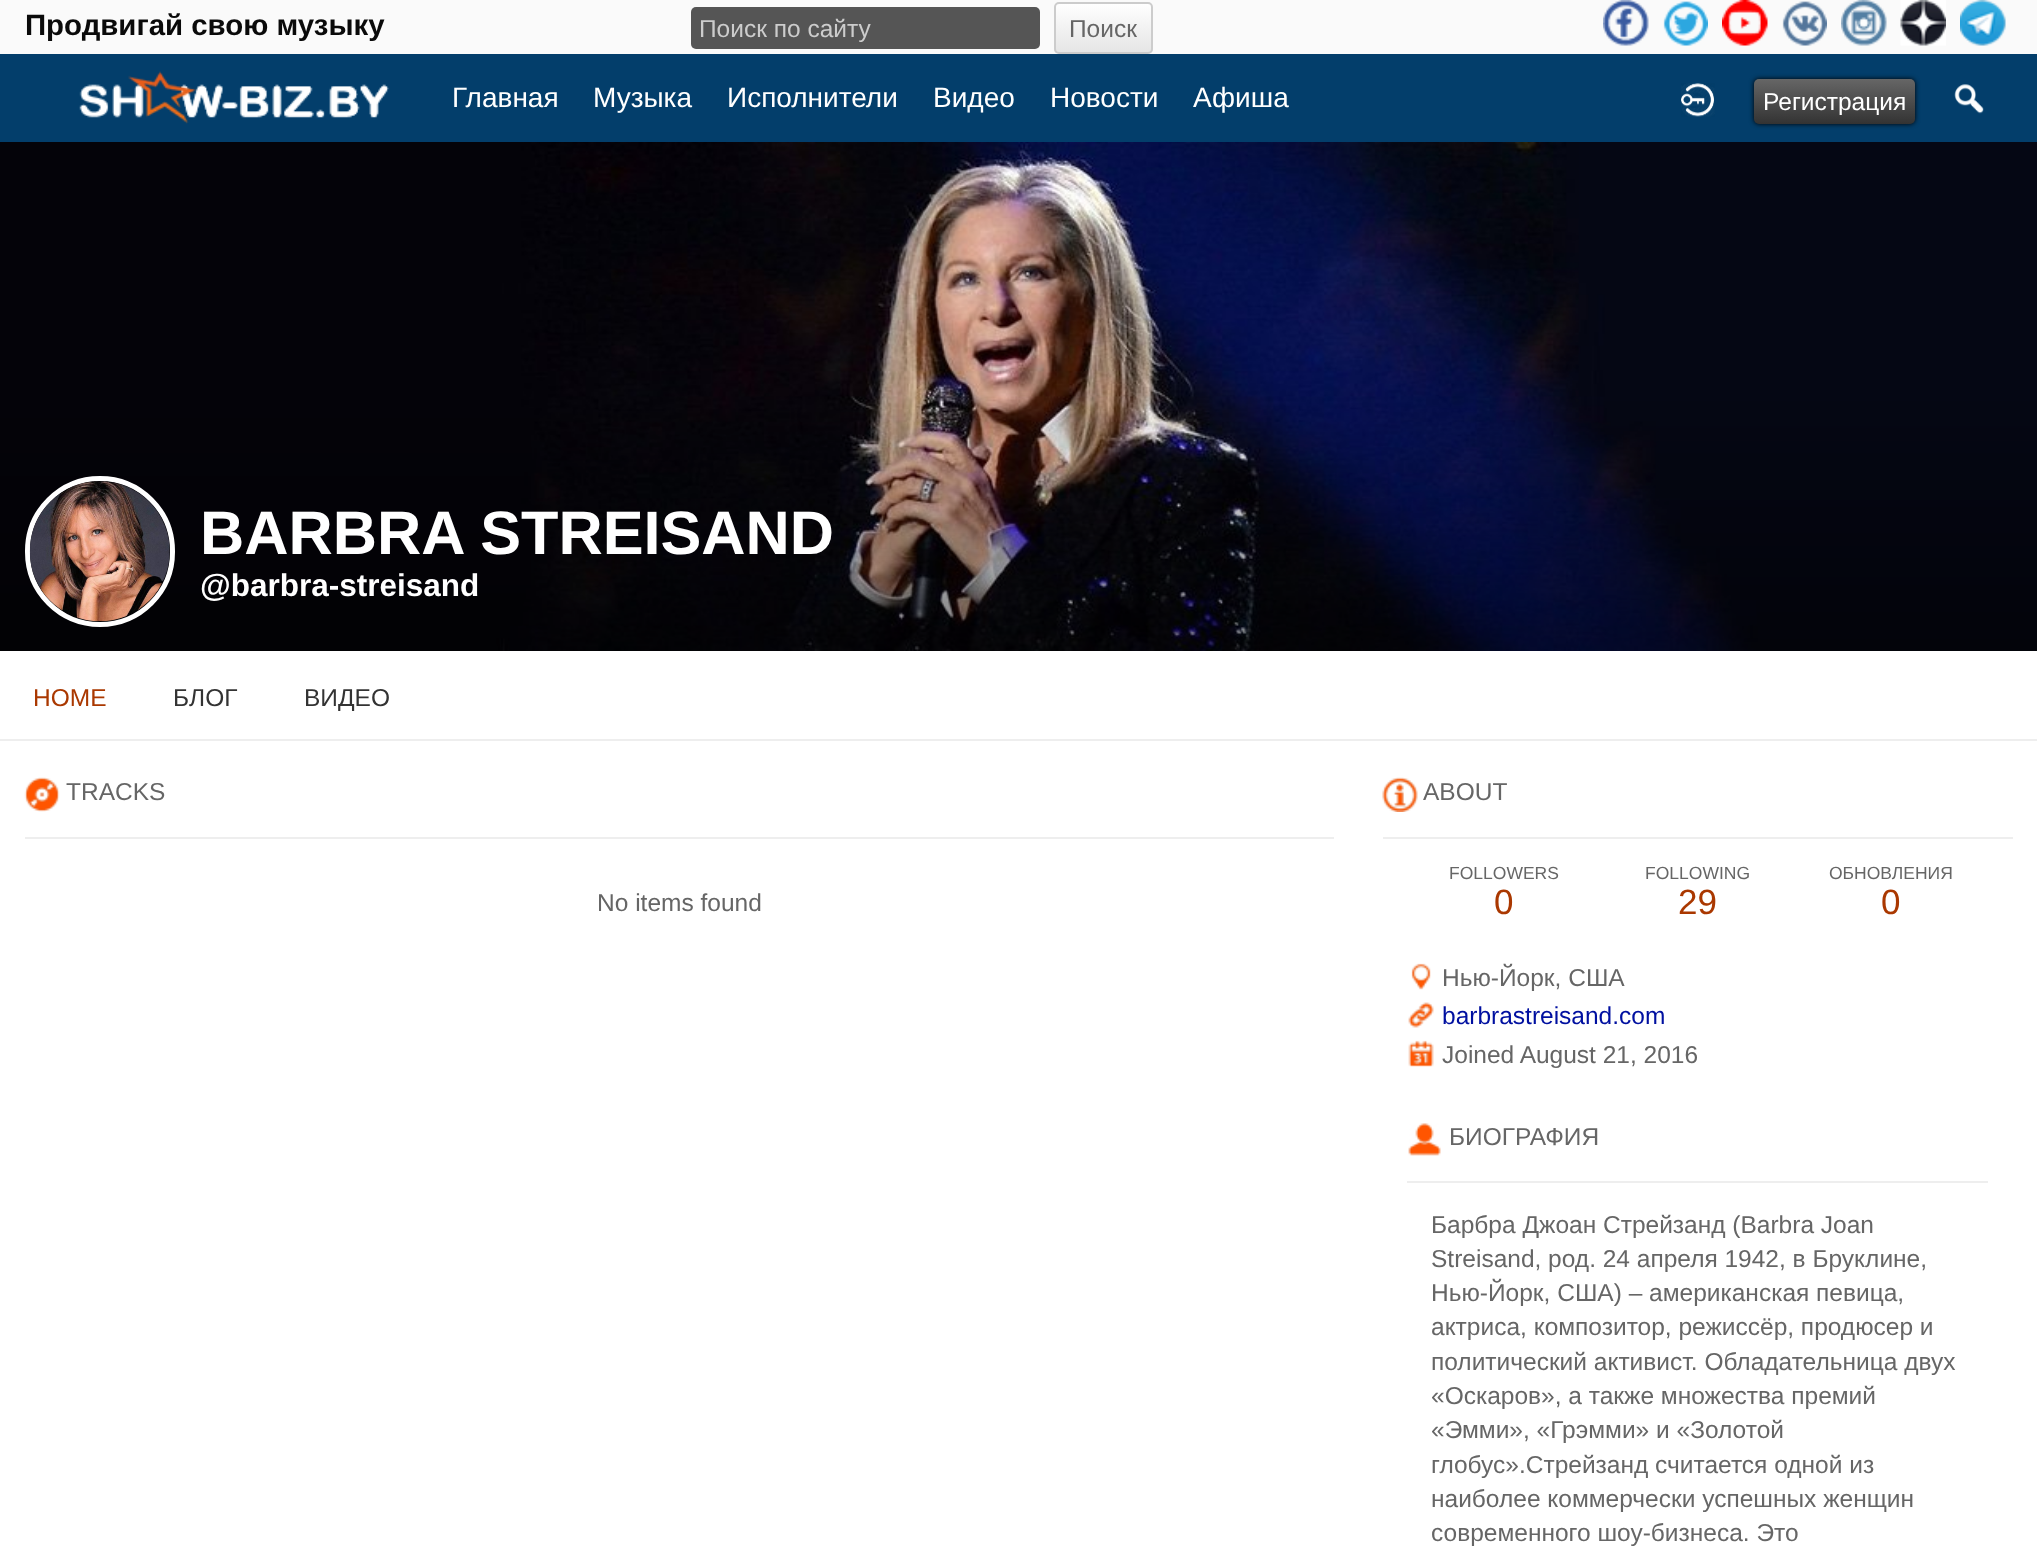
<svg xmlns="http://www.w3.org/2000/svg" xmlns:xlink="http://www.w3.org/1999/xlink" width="2037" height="1558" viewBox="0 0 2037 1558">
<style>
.cls-1{font:bold 29.4px Liberation Sans;fill:#0a0a0a}
.cls-2{font:24.5px Liberation Sans;fill:#cccccc}
.cls-3{font:24.5px Liberation Sans;fill:#666666}
.cls-4{font:28px Liberation Sans;fill:#ffffff}
.cls-5{font:24.5px Liberation Sans;fill:#ffffff}
.cls-6{font:bold 61.25px Liberation Sans;fill:#ffffff}
.cls-7{font:bold 31.5px Liberation Sans;fill:#ffffff}
.cls-8{font:24.5px Liberation Sans;fill:#aa3800}
.cls-9{font:24.5px Liberation Sans;fill:#333333}
.cls-10{font:17.5px Liberation Sans;fill:#666666}
.cls-11{font:35px Liberation Sans;fill:#aa3800}
.cls-12{font:24.5px Liberation Sans;fill:#0010a0}
</style>
<defs>
<clipPath id="clip1"><rect x="1054" y="2" width="99" height="52" rx="5"/></clipPath>
<linearGradient id="g1" gradientUnits="userSpaceOnUse" x1="1103" y1="3.5" x2="1103" y2="53"><stop offset="0" stop-color="#ffffff"/><stop offset="1" stop-color="#e5e5e5"/></linearGradient>
<linearGradient id="g2" gradientUnits="userSpaceOnUse" x1="1834" y1="79" x2="1834" y2="124"><stop offset="0" stop-color="#666666"/><stop offset="1" stop-color="#333333"/></linearGradient>
</defs>
<rect width="100%" height="100%" fill="#fafafa"/>
<rect fill="#555555" x="691" y="7" width="349" height="42" rx="5"/>
<g clip-path="url(#clip1)">
<rect fill="url(#g1)" x="1054" y="4" width="99" height="49"/>
</g>
<rect fill="none" stroke="#cccccc" stroke-width="2" x="1055" y="3" width="97" height="50" rx="4"/>
<image xlink:href="image0.png" x="1603" y="0" width="46" height="46"/>
<image xlink:href="image1.png" x="1663" y="1" width="45" height="45"/>
<image xlink:href="image2.png" x="1722" y="0" width="46" height="46"/>
<image xlink:href="image3.png" x="1782" y="1" width="45" height="45"/>
<image xlink:href="image4.png" x="1841" y="0" width="46" height="46"/>
<image xlink:href="image5.png" x="1900" y="0" width="46" height="46"/>
<image xlink:href="image6.png" x="1960" y="0" width="46" height="46"/>
<rect fill="#033e6b" x="0" y="54" width="2037" height="88"/>
<image xlink:href="image7.png" x="79" y="71" width="310" height="53"/>
<image xlink:href="image8.png" x="1681" y="83" width="34" height="34"/>
<rect fill="#000000" filter="blur(2.5px)" x="1754" y="79" width="161" height="45" rx="5"/>
<rect fill="url(#g2)" x="1754" y="79" width="161" height="45" rx="5"/>
<image xlink:href="image9.png" x="1954" y="84" width="30" height="30"/>
<rect fill="#ffffff" x="0" y="651" width="2037" height="907"/>
<image xlink:href="image10.png" x="0" y="142" width="2037" height="509"/>
<rect fill="none" stroke="#ffffff" stroke-width="5" x="27.5" y="478.5" width="145" height="146" rx="72.5"/>
<image xlink:href="image11.png" x="29" y="481" width="141" height="141"/>
<rect fill="#eeeeee" x="0" y="739" width="2037" height="2"/>
<rect fill="#eeeeee" x="25" y="837" width="1309" height="2"/>
<image xlink:href="image12.png" x="24" y="777" width="36" height="35"/>
<rect fill="#eeeeee" x="1383" y="837" width="630" height="2"/>
<image xlink:href="image13.png" x="1382" y="777" width="36" height="35"/>
<image xlink:href="image14.png" x="1411" y="963" width="20" height="27"/>
<image xlink:href="image15.png" x="1408" y="1002" width="26" height="26"/>
<image xlink:href="image16.png" x="1408" y="1040" width="26" height="27"/>
<rect fill="#eeeeee" x="1407" y="1181" width="581" height="2"/>
<image xlink:href="image17.png" x="1408" y="1123" width="33" height="33"/>
<text class="cls-1" x="25" y="35">Продвигай свою музыку</text>
<text class="cls-2" x="699" y="37">Поиск по сайту</text>
<text class="cls-3" x="1069" y="37">Поиск</text>
<text class="cls-4" x="452" y="107">Главная</text>
<text class="cls-4" x="593" y="107">Музыка</text>
<text class="cls-4" x="727" y="107">Исполнители</text>
<text class="cls-4" x="933" y="107">Видео</text>
<text class="cls-4" x="1050" y="107">Новости</text>
<text class="cls-4" x="1193" y="107">Афиша</text>
<text class="cls-5" x="1763" y="110">Регистрация</text>
<text class="cls-6" x="200" y="554">BARBRA STREISAND</text>
<text class="cls-7" x="200" y="596">@barbra-streisand</text>
<text class="cls-8" x="33" y="706">HOME</text>
<text class="cls-9" x="173" y="706">БЛОГ</text>
<text class="cls-9" x="304" y="706">ВИДЕО</text>
<text class="cls-3" x="66" y="800">TRACKS</text>
<text class="cls-3" x="597" y="911">No items found</text>
<text class="cls-3" x="1423" y="800">ABOUT</text>
<text class="cls-10" x="1449" y="879">FOLLOWERS</text>
<text class="cls-11" x="1494" y="914">0</text>
<text class="cls-10" x="1645" y="879">FOLLOWING</text>
<text class="cls-11" x="1678" y="914">29</text>
<text class="cls-10" x="1829" y="879">ОБНОВЛЕНИЯ</text>
<text class="cls-11" x="1881" y="914">0</text>
<text class="cls-3" x="1442" y="986">Нью-Йорк, США</text>
<text class="cls-12" x="1442" y="1024">barbrastreisand.com</text>
<text class="cls-3" x="1442" y="1063">Joined August 21, 2016</text>
<text class="cls-3" x="1449" y="1145">БИОГРАФИЯ</text>
<text class="cls-3"><tspan x="1431" y="1233">Барбра Джоан Стрейзанд (Barbra Joan</tspan><tspan x="1431" y="1267">Streisand, род. 24 апреля 1942, в Бруклине,</tspan><tspan x="1431" y="1301">Нью-Йорк, США) – американская певица,</tspan><tspan x="1431" y="1335">актриса, композитор, режиссёр, продюсер и</tspan><tspan x="1431" y="1370">политический активист. Обладательница двух</tspan><tspan x="1431" y="1404">«Оскаров», а также множества премий</tspan><tspan x="1431" y="1438">«Эмми», «Грэмми» и «Золотой</tspan><tspan x="1431" y="1473">глобус».Стрейзанд считается одной из</tspan><tspan x="1431" y="1507">наиболее коммерчески успешных женщин</tspan><tspan x="1431" y="1541">современного шоу-бизнеса. Это</tspan></text>
</svg>
